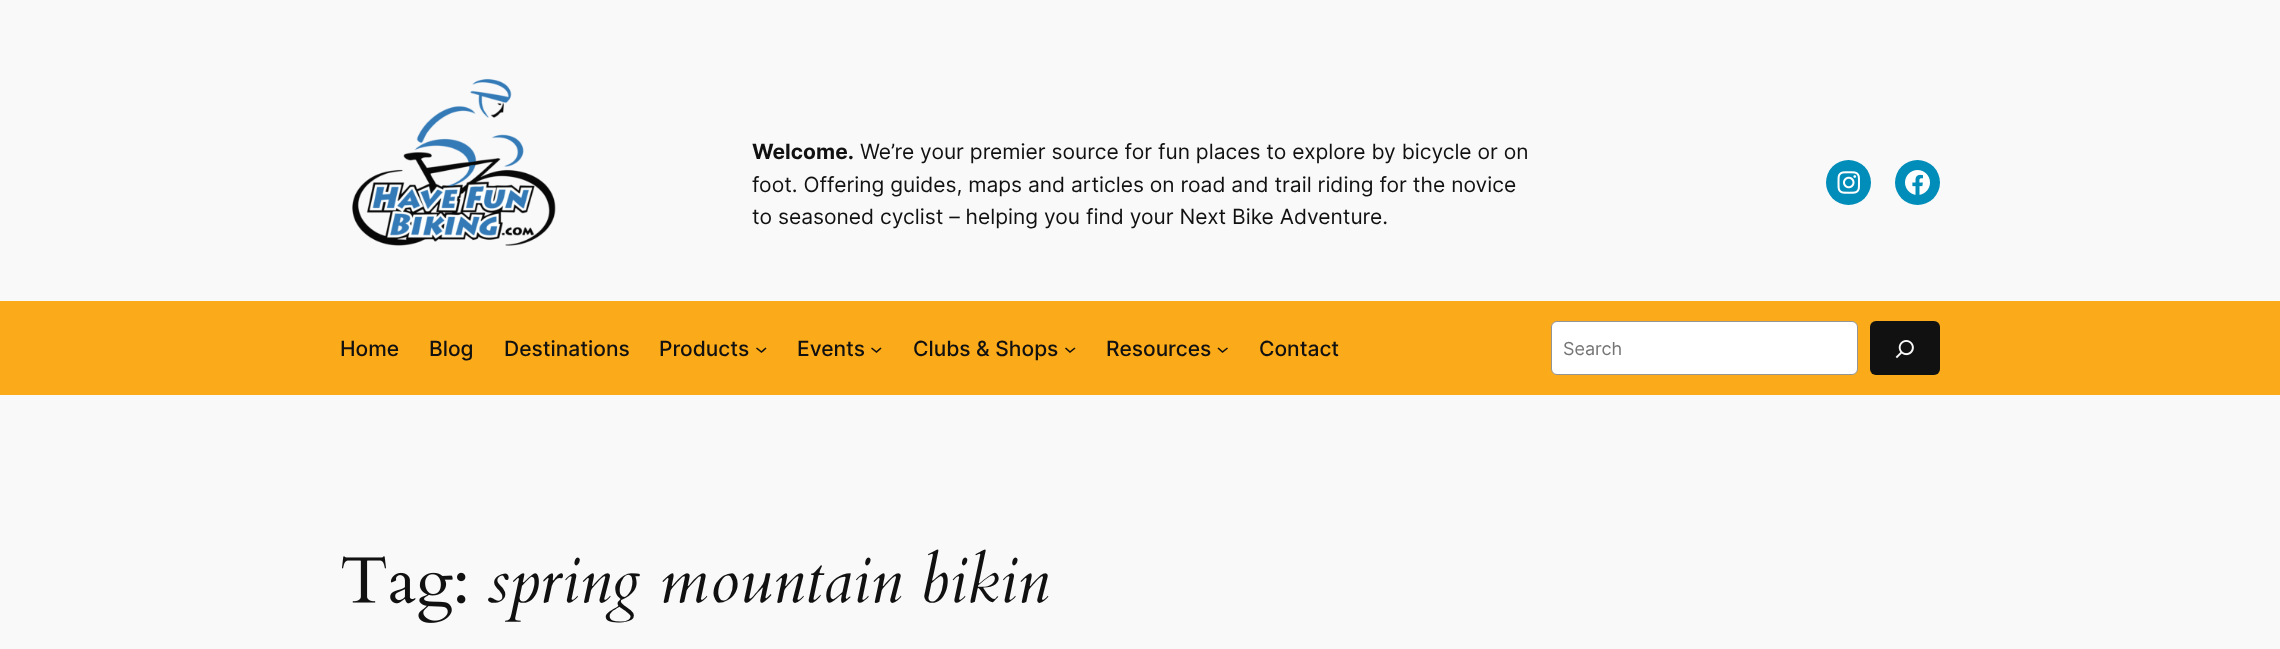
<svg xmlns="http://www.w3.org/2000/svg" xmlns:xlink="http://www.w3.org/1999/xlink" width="2280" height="649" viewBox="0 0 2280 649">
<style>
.cls-1{font:bold 21px Inter;fill:#111111}
.cls-2{font:21px Inter;fill:#111111}
.cls-3{font:500 21px Inter;fill:#111111}
.cls-4{font:18px Inter;fill:#757575}
.cls-5{font:italic 65.5px Cardo;fill:#111111}
</style>
<rect width="100%" height="100%" fill="#f9f9f9"/>
<image xlink:href="image0.png" x="352" y="78" width="204" height="168"/>
<circle fill="#008db9" cx="1848.5" cy="182.5" r="22.5"/>
<image xlink:href="image1.png" x="1837" y="171" width="23" height="23"/>
<circle fill="#008db9" cx="1917.5" cy="182.5" r="22.5"/>
<image xlink:href="image2.png" x="1905" y="170" width="25" height="25"/>
<rect fill="#fbaa19" x="0" y="301" width="2280" height="94"/>
<path fill="none" stroke="#111111" stroke-width="1.6" d="M756.5 348L761.5 352L766 348"/>
<path fill="none" stroke="#111111" stroke-width="1.6" d="M871.5 348L876.5 352L881 348"/>
<path fill="none" stroke="#111111" stroke-width="1.6" d="M1065.5 348L1070 352L1075 348"/>
<path fill="none" stroke="#111111" stroke-width="1.6" d="M1218 348L1222.5 352L1227.5 348"/>
<rect fill="#ffffff" stroke="#949494" x="1551.5" y="321.5" width="306" height="53" rx="5.5"/>
<rect fill="#111111" x="1870" y="321" width="70" height="54" rx="6"/>
<image xlink:href="image3.png" x="1895" y="340" width="19" height="19"/>
<image xlink:href="image4.png" x="342" y="556" width="124" height="67"/>
<text class="cls-1" x="752" y="159">Welcome.</text>
<text class="cls-2" x="860" y="159">We’re your premier source for fun places to explore by bicycle or on</text>
<text class="cls-2"><tspan x="752" y="192">foot. Offering guides, maps and articles on road and trail riding for the novice</tspan><tspan x="752" y="224">to seasoned cyclist – helping you find your Next Bike Adventure.</tspan></text>
<text class="cls-3" x="340" y="356">Home</text>
<text class="cls-3" x="429" y="356">Blog</text>
<text class="cls-3" x="504" y="356">Destinations</text>
<text class="cls-3" x="659" y="356">Products</text>
<text class="cls-3" x="797" y="356">Events</text>
<text class="cls-3" x="913" y="356">Clubs &amp; Shops</text>
<text class="cls-3" x="1106" y="356">Resources</text>
<text class="cls-3" x="1259" y="356">Contact</text>
<text class="cls-4" x="1563" y="355">Search</text>
<text class="cls-5" x="487" y="602">spring mountain bikin</text>
</svg>
